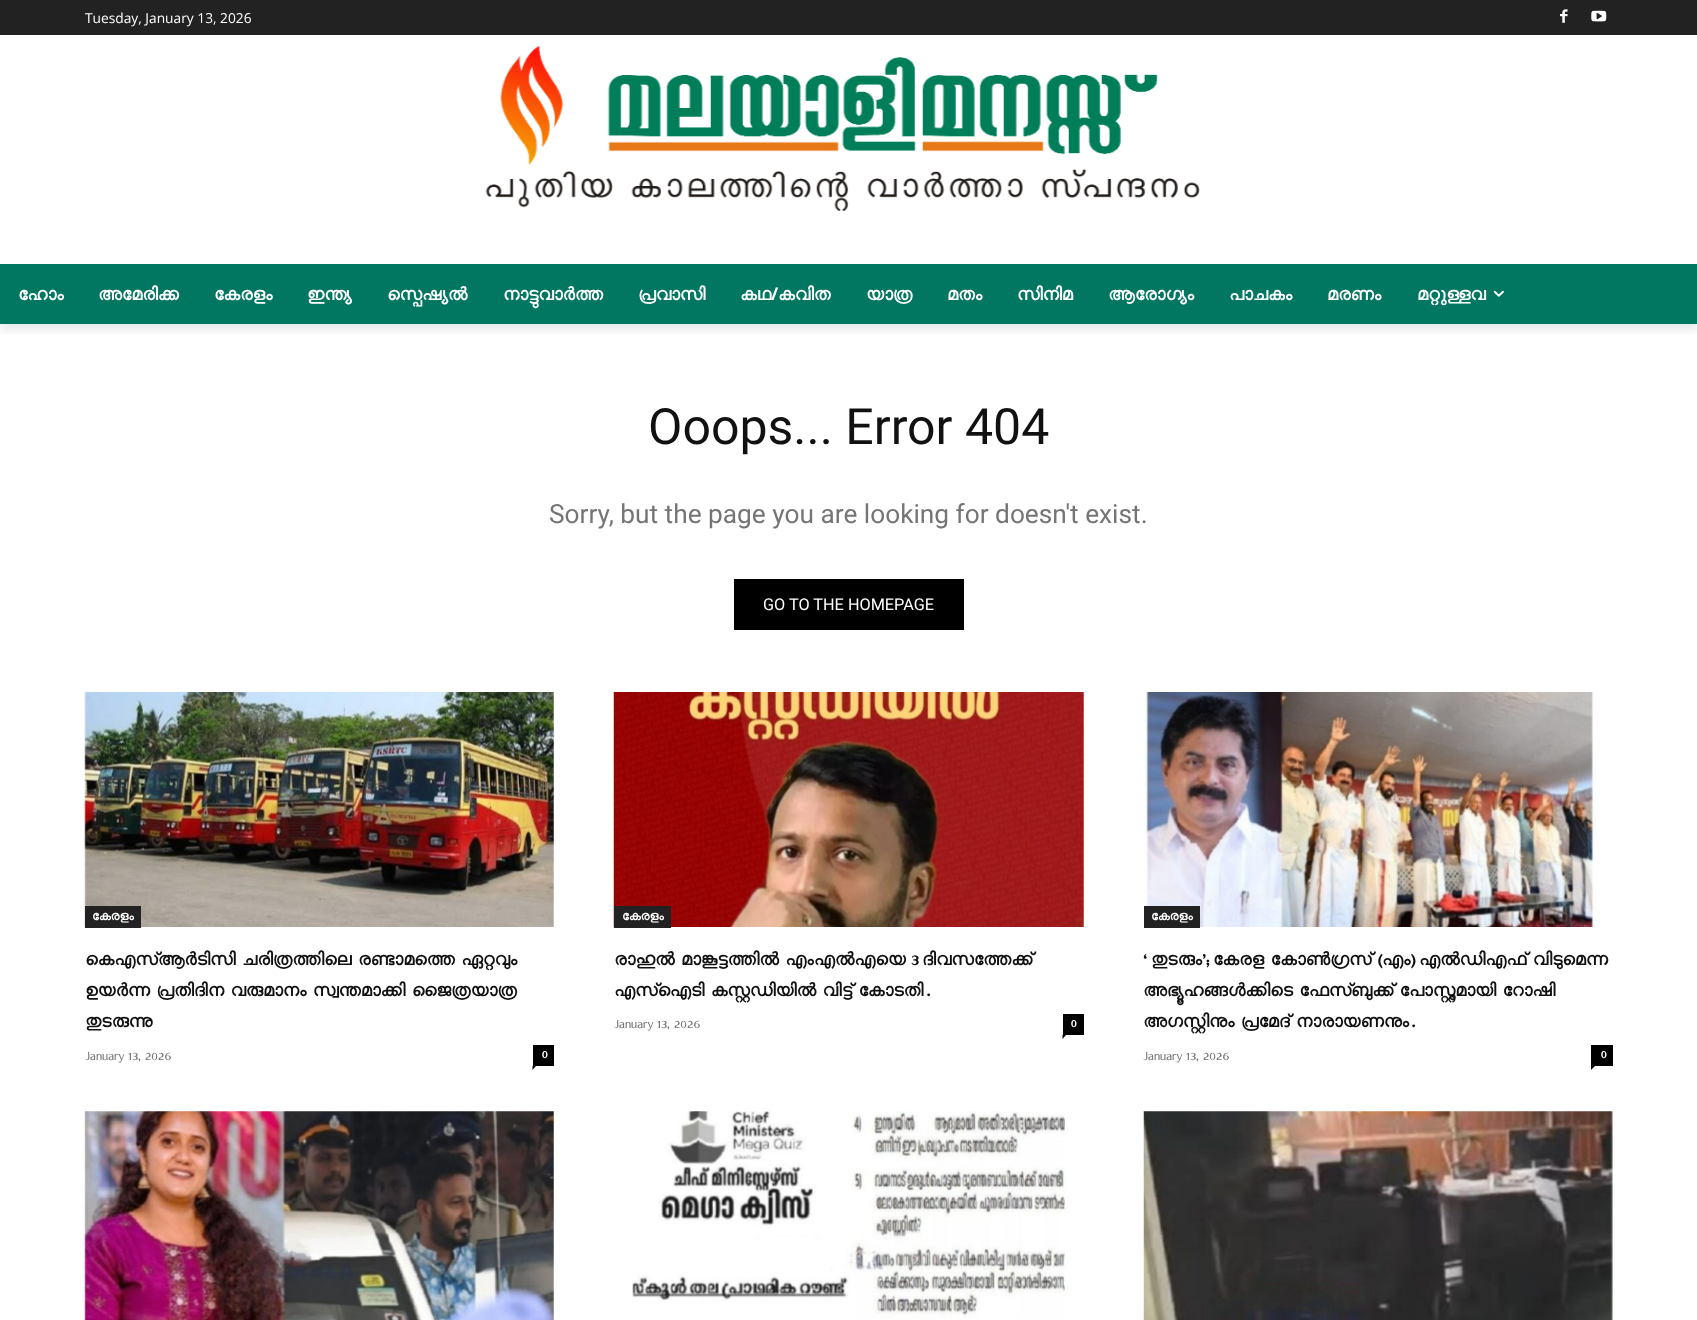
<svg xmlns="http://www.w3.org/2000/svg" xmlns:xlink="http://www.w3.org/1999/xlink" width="1697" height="1320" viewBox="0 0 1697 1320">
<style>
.cls-1{font:13.75px Open Sans;fill:#ffffff}
.cls-2{font:bold 17.5px FreeSans;fill:#ffffff}
.cls-3{font:bold 17.5px Open Sans;fill:#ffffff}
.cls-4{font:50px Roboto;fill:#111111}
.cls-5{font:26.25px Roboto;fill:#757575}
.cls-6{font:16.25px Roboto;fill:#ffffff}
.cls-7{font:bold 12.5px FreeSans;fill:#ffffff}
.cls-8{font:bold 17.5px FreeSans;fill:#111111}
.cls-9{font:13.75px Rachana;fill:#757575}
.cls-10{font:bold 12.5px Rachana;fill:#ffffff}
.cls-11{font:bold 17.5px Rachana;fill:#111111}
</style>
<defs>
<clipPath id="clip1"><rect x="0" y="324" width="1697" height="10"/></clipPath>
</defs>
<rect width="100%" height="100%" fill="#ffffff"/>
<rect fill="#222222" x="0" y="0" width="1697" height="35"/>
<image xlink:href="image0.png" x="1560" y="9" width="8" height="14"/>
<image xlink:href="image1.png" x="1591" y="10" width="16" height="12"/>
<image xlink:href="image2.png" x="485" y="45" width="715" height="167"/>
<rect fill="#017661" x="0" y="264" width="1697" height="60"/>
<g clip-path="url(#clip1)">
<rect fill="#000000" fill-opacity="0.08" filter="blur(5px)" x="0" y="8" width="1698" height="323"/>
</g>
<image xlink:href="image3.png" x="1493" y="290" width="11" height="7"/>
<rect fill="#000000" x="734" y="579" width="230" height="51"/>
<image xlink:href="image4.png" x="84" y="692" width="470" height="235"/>
<rect fill="#222222" x="85" y="906" width="56" height="22"/>
<rect fill="#000000" x="533" y="1045" width="21" height="21"/>
<path fill="#000000" d="M532.5 1066H536L532.5 1070Z"/>
<image xlink:href="image5.png" x="613" y="692" width="471" height="235"/>
<rect fill="#222222" x="614" y="906" width="57" height="22"/>
<rect fill="#000000" x="1063" y="1014" width="21" height="21"/>
<path fill="#000000" d="M1062.5 1035H1066L1062.5 1039Z"/>
<image xlink:href="image6.png" x="1144" y="692" width="453" height="235"/>
<rect fill="#222222" x="1144" y="906" width="56" height="22"/>
<rect fill="#000000" x="1591" y="1045" width="22" height="21"/>
<path fill="#000000" d="M1591 1066H1595L1591 1070Z"/>
<image xlink:href="image7.png" x="84" y="1111" width="470" height="209"/>
<image xlink:href="image8.png" x="632" y="1111" width="436" height="208"/>
<image xlink:href="image9.png" x="1143" y="1111" width="470" height="209"/>
<text class="cls-1" x="85" y="23">Tuesday, January 13, 2026</text>
<text class="cls-2" x="18" y="300">ഹോം</text>
<text class="cls-2" x="98" y="300">അമേരിക്ക</text>
<text class="cls-2" x="214" y="300">കേരളം</text>
<text class="cls-2" x="307" y="300">ഇന്ത്യ</text>
<text class="cls-2" x="387" y="300">സ്പെഷ്യൽ</text>
<text class="cls-2" x="503" y="300">നാട്ടുവാർത്ത</text>
<text class="cls-2" x="638" y="300">പ്രവാസി</text>
<text class="cls-2" x="740" y="300">കഥ</text>
<text class="cls-3" x="771" y="300">/</text>
<text class="cls-2" x="778" y="300">കവിത</text>
<text class="cls-2" x="866" y="300">യാത്ര</text>
<text class="cls-2" x="947" y="300">മതം</text>
<text class="cls-2" x="1017" y="300">സിനിമ</text>
<text class="cls-2" x="1108" y="300">ആരോഗ്യം</text>
<text class="cls-2" x="1229" y="300">പാചകം</text>
<text class="cls-2" x="1327" y="300">മരണം</text>
<text class="cls-2" x="1417" y="300">മറ്റുള്ളവ</text>
<text class="cls-4" x="648" y="444">Ooops... Error 404</text>
<text class="cls-5" x="549" y="523">Sorry, but the page you are looking for doesn't exist.</text>
<text class="cls-6" x="763" y="610">GO TO THE HOMEPAGE</text>
<text class="cls-7" x="92" y="920">കേരളം</text>
<text class="cls-8"><tspan x="85" y="965" word-spacing="-0.5">കെഎസ്ആർടിസി ചരിത്രത്തിലെ രണ്ടാമത്തെ ഏറ്റവും</tspan><tspan x="85" y="996" word-spacing="-0.5">ഉയർന്ന പ്രതിദിന വരുമാനം സ്വന്തമാക്കി ജൈത്രയാത്ര</tspan><tspan x="85" y="1027">തുടരുന്നു</tspan></text>
<text class="cls-9" x="85" y="1060">January 13, 2026</text>
<text class="cls-10" x="541" y="1058">0</text>
<text class="cls-7" x="622" y="920">കേരളം</text>
<text class="cls-8" x="614" y="965" word-spacing="-0.5">രാഹുൽ മാങ്കൂട്ടത്തിൽ എംഎൽഎയെ</text>
<text class="cls-11" x="910" y="965">3</text>
<text class="cls-8" x="922" y="965">ദിവസത്തേക്ക്</text>
<text class="cls-8" x="614" y="996" word-spacing="-0.5">എസ്ഐടി കസ്റ്റഡിയിൽ വിട്ട് കോടതി</text>
<text class="cls-11" x="926" y="996">.</text>
<text class="cls-9" x="614" y="1028">January 13, 2026</text>
<text class="cls-10" x="1070" y="1027">0</text>
<text class="cls-7" x="1151" y="920">കേരളം</text>
<text class="cls-11" x="1143" y="965">‘</text>
<text class="cls-8" x="1151" y="965">തുടരും</text>
<text class="cls-11" x="1202" y="965">’;</text>
<text class="cls-8" x="1213" y="965" word-spacing="-0.5">കേരള കോണ്‍ഗ്രസ്</text>
<text class="cls-11" x="1377" y="965">(</text>
<text class="cls-8" x="1382" y="965">എം</text>
<text class="cls-11" x="1410" y="965">)</text>
<text class="cls-8" x="1419" y="965" word-spacing="-0.5">എല്‍ഡിഎഫ് വിടുമെന്ന</text>
<text class="cls-8"><tspan x="1143" y="996" word-spacing="-0.5">അഭ്യൂഹങ്ങള്‍ക്കിടെ ഫേസ്ബുക്ക് പോസ്റ്റുമായി റോഷി</tspan><tspan x="1143" y="1027" word-spacing="-0.5">അഗസ്റ്റിനും പ്രമേദ് നാരായണനും</tspan></text>
<text class="cls-11" x="1411" y="1027">.</text>
<text class="cls-9" x="1143" y="1060">January 13, 2026</text>
<text class="cls-10" x="1600" y="1058">0</text>
</svg>
